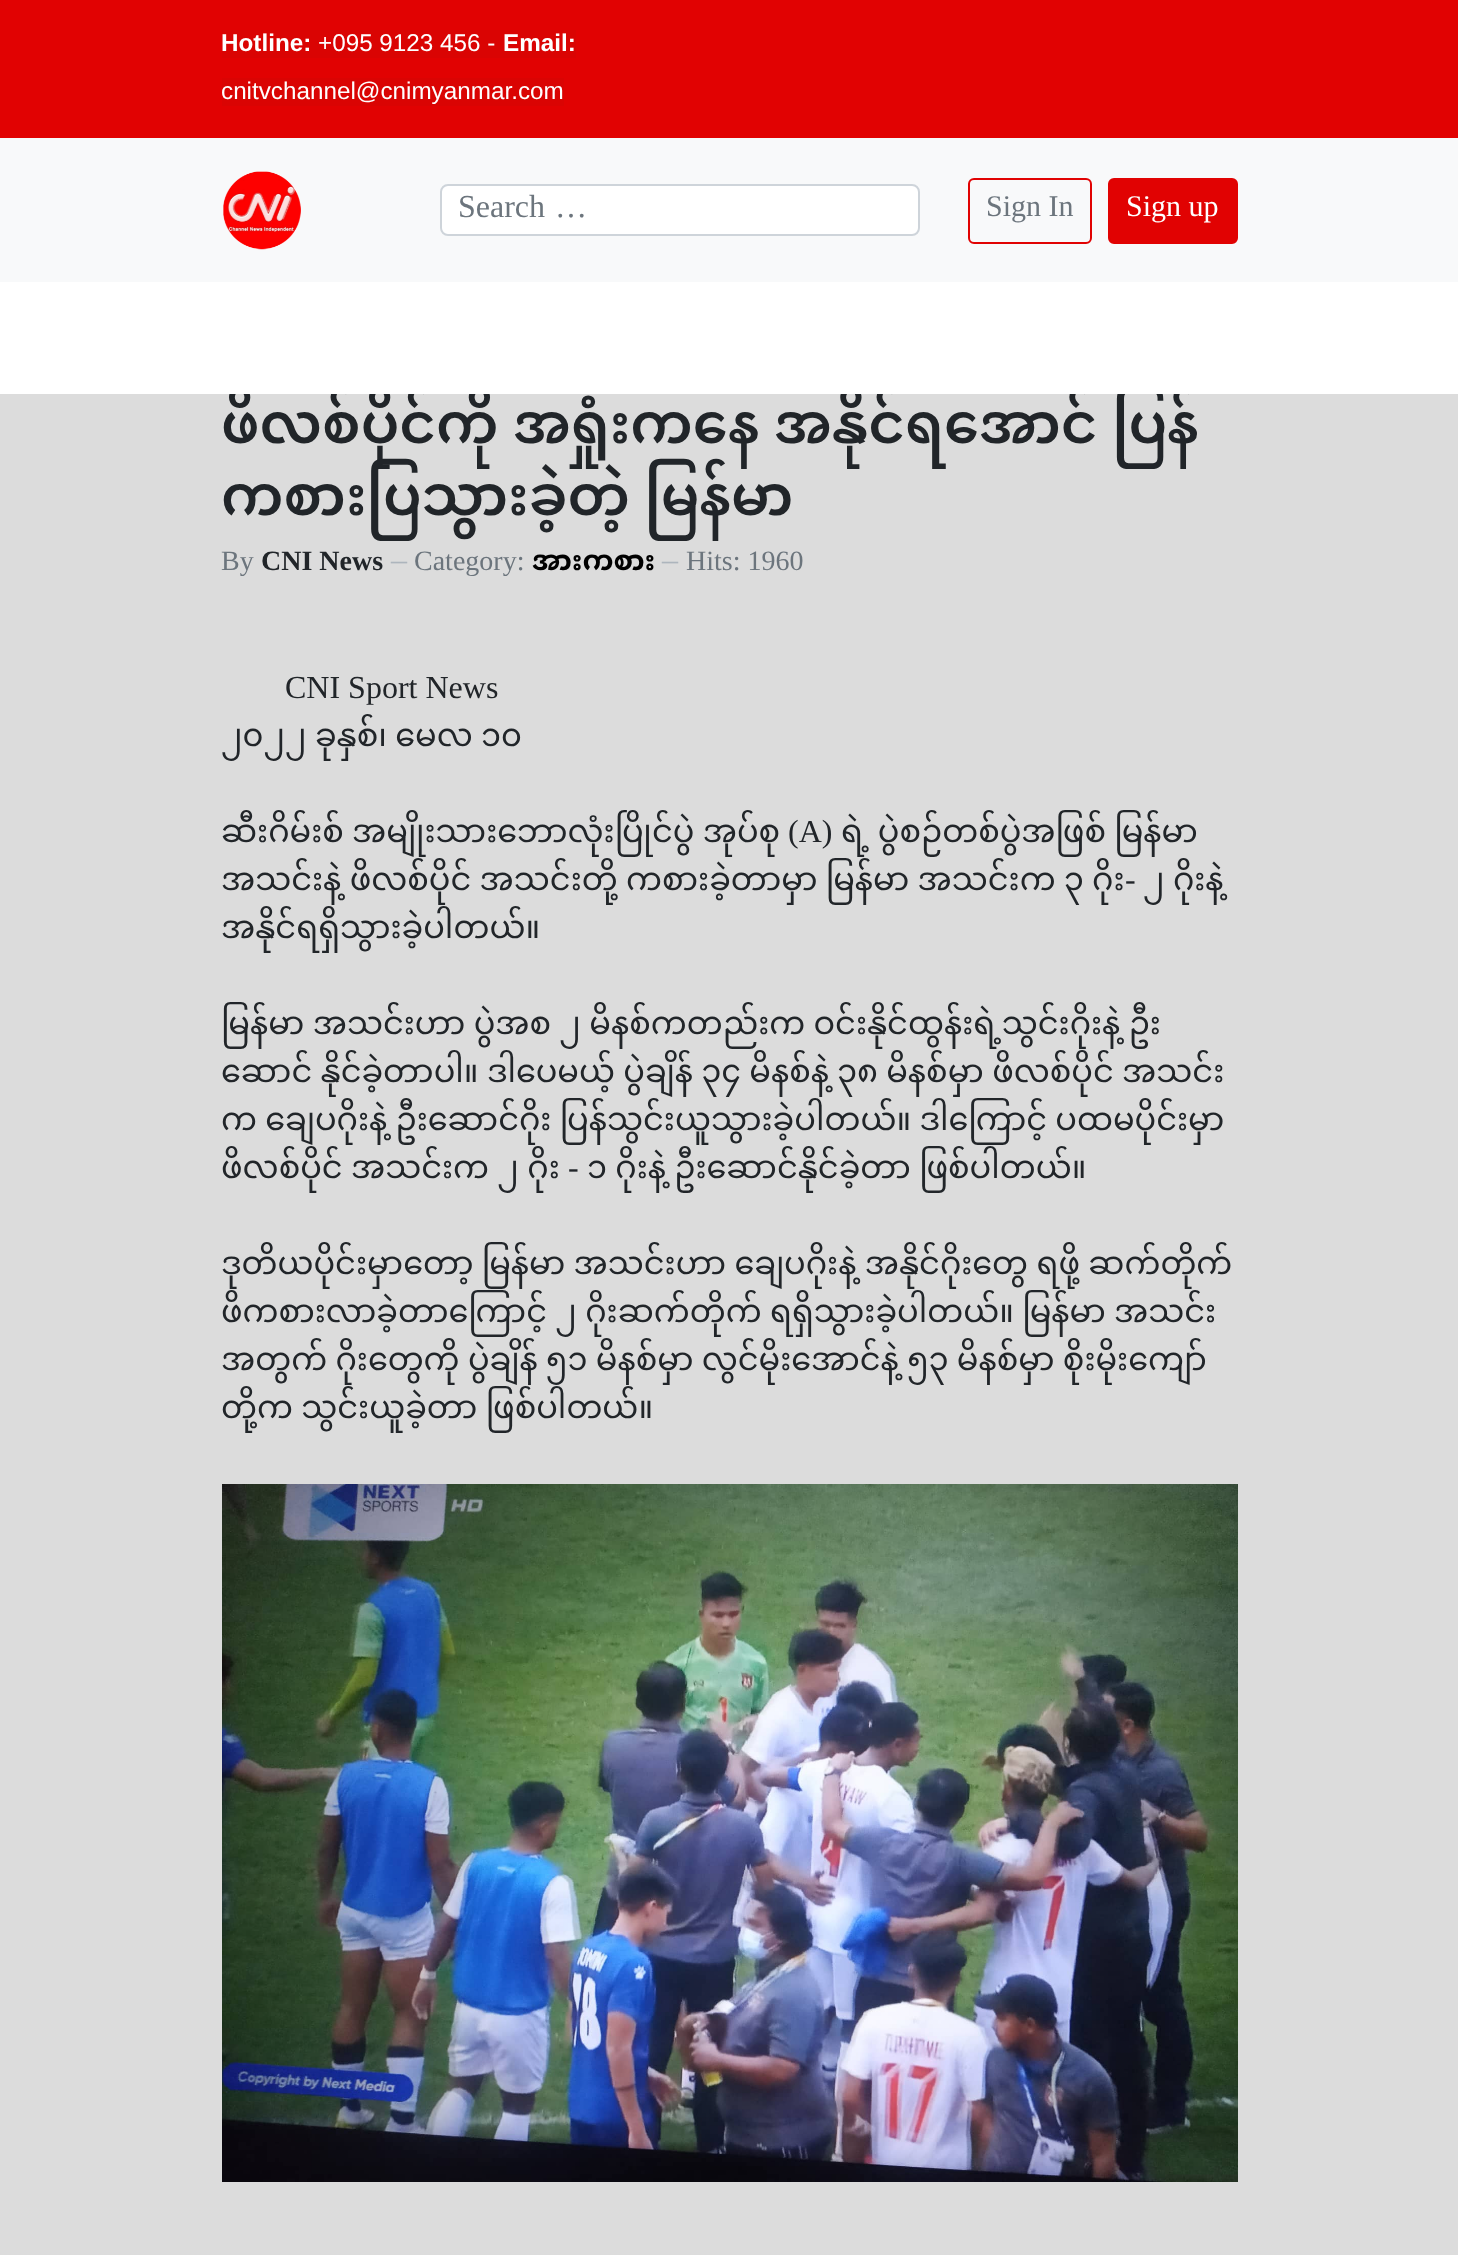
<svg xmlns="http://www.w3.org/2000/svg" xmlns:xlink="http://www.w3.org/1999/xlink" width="1458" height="2255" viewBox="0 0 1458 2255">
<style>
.cls-1{font:bold 24.25px Liberation Sans;fill:#ffffff}
.cls-2{font:24.25px Liberation Sans;fill:#ffffff}
.cls-3{font:32px Liberation Serif;fill:#6c757d}
.cls-4{font:30px Liberation Serif;fill:#6c757d}
.cls-5{font:30px Liberation Serif;fill:#ffffff}
.cls-6{font:600 56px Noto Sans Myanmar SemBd;fill:#212529}
.cls-7{font:28px Liberation Serif;fill:#6c757d}
.cls-8{font:bold 28px Liberation Serif;fill:#212529}
.cls-9{font:32px Liberation Serif;fill:#adb5bd}
.cls-10{font:bold 28px Noto Sans Myanmar;fill:#000000}
.cls-11{font:32px Liberation Serif;fill:#212529}
.cls-12{font:32px Noto Sans Myanmar;fill:#212529}
</style>
<rect width="100%" height="100%" fill="#e10202"/>
<rect fill="#da0403" x="222" y="30" width="354" height="28"/>
<rect fill="#da0403" x="222" y="78" width="342" height="28"/>
<rect fill="#f8f9fa" x="0" y="138" width="1458" height="144"/>
<image xlink:href="image0.png" x="223" y="171" width="78" height="79"/>
<rect fill="#ffffff" stroke="#ced4da" stroke-width="2" x="441" y="185" width="478" height="50" rx="7"/>
<rect fill="none" stroke="#e10202" stroke-width="2" x="969" y="179" width="122" height="64" rx="5"/>
<rect fill="#e10202" stroke="#e10202" stroke-width="2" x="1109" y="179" width="128" height="64" rx="5"/>
<rect fill="#dcdcdc" x="0" y="394" width="1458" height="1861"/>
<image xlink:href="image1.png" x="222" y="1484" width="1016" height="698"/>
<text class="cls-1" x="221" y="51">Hotline:</text>
<text class="cls-2" x="318" y="51">+095 9123 456 -</text>
<text class="cls-1" x="503" y="51">Email:</text>
<text class="cls-2" x="221" y="99">cnitvchannel@cnimyanmar.com</text>
<text class="cls-3" x="458" y="217" word-spacing="2">Search …</text>
<text class="cls-4" x="986" y="216">Sign In</text>
<text class="cls-5" x="1126" y="216">Sign up</text>
<text class="cls-6" x="221" y="443">ဖိလစ်ပိုင်ကို အရှုံးကနေ အနိုင်ရအောင် ပြန်</text>
<rect fill="#ffffff" x="0" y="282" width="1458" height="112"/>
<text class="cls-6" x="221" y="515">ကစားပြသွားခဲ့တဲ့ မြန်မာ</text>
<text class="cls-7" x="221" y="570">By</text>
<text class="cls-8" x="261" y="570">CNI News</text>
<text class="cls-9" x="391" y="570">–</text>
<text class="cls-7" x="414" y="570">Category:</text>
<text class="cls-10" x="532" y="570">အားကစား</text>
<text class="cls-9" x="662" y="570">–</text>
<text class="cls-7" x="686" y="570">Hits: 1960</text>
<text class="cls-11" x="285" y="698">CNI Sport News</text>
<text class="cls-12" x="221" y="746">၂၀၂၂ ခုနှစ်၊ မေလ ၁၀</text>
<text class="cls-12" x="221" y="842">ဆီးဂိမ်းစ် အမျိုးသားဘောလုံးပြိုင်ပွဲ အုပ်စု</text>
<text class="cls-11" x="788" y="842">(A)</text>
<text class="cls-12" x="841" y="842">ရဲ့ ပွဲစဉ်တစ်ပွဲအဖြစ် မြန်မာ</text>
<text class="cls-12" x="221" y="890">အသင်းနဲ့ ဖိလစ်ပိုင် အသင်းတို့ ကစားခဲ့တာမှာ မြန်မာ အသင်းက ၃ ဂိုး</text>
<text class="cls-11" x="1125" y="890">-</text>
<text class="cls-12" x="1143" y="890">၂ ဂိုးနဲ့</text>
<text class="cls-12" x="221" y="938">အနိုင်ရရှိသွားခဲ့ပါတယ်။</text>
<text class="cls-12"><tspan x="221" y="1034">မြန်မာ အသင်းဟာ ပွဲအစ ၂ မိနစ်ကတည်းက ဝင်းနိုင်ထွန်းရဲ့သွင်းဂိုးနဲ့ ဦး</tspan><tspan x="221" y="1082">ဆောင် နိုင်ခဲ့တာပါ။ ဒါပေမယ့် ပွဲချိန် ၃၄ မိနစ်နဲ့ ၃၈ မိနစ်မှာ ဖိလစ်ပိုင် အသင်း</tspan><tspan x="221" y="1130">က ချေပဂိုးနဲ့ ဦးဆောင်ဂိုး ပြန်သွင်းယူသွားခဲ့ပါတယ်။ ဒါကြောင့် ပထမပိုင်းမှာ</tspan><tspan x="221" y="1178">ဖိလစ်ပိုင် အသင်းက ၂ ဂိုး</tspan></text>
<text class="cls-11" x="568" y="1178">-</text>
<text class="cls-12" x="587" y="1178">၁ ဂိုးနဲ့ ဦးဆောင်နိုင်ခဲ့တာ ဖြစ်ပါတယ်။</text>
<text class="cls-12"><tspan x="221" y="1274">ဒုတိယပိုင်းမှာတော့ မြန်မာ အသင်းဟာ ချေပဂိုးနဲ့ အနိုင်ဂိုးတွေ ရဖို့ ဆက်တိုက်</tspan><tspan x="221" y="1322">ဖိကစားလာခဲ့တာကြောင့် ၂ ဂိုးဆက်တိုက် ရရှိသွားခဲ့ပါတယ်။ မြန်မာ အသင်း</tspan><tspan x="221" y="1370">အတွက် ဂိုးတွေကို ပွဲချိန် ၅၁ မိနစ်မှာ လွင်မိုးအောင်နဲ့ ၅၃ မိနစ်မှာ စိုးမိုးကျော်</tspan><tspan x="221" y="1418">တို့က သွင်းယူခဲ့တာ ဖြစ်ပါတယ်။</tspan></text>
</svg>
